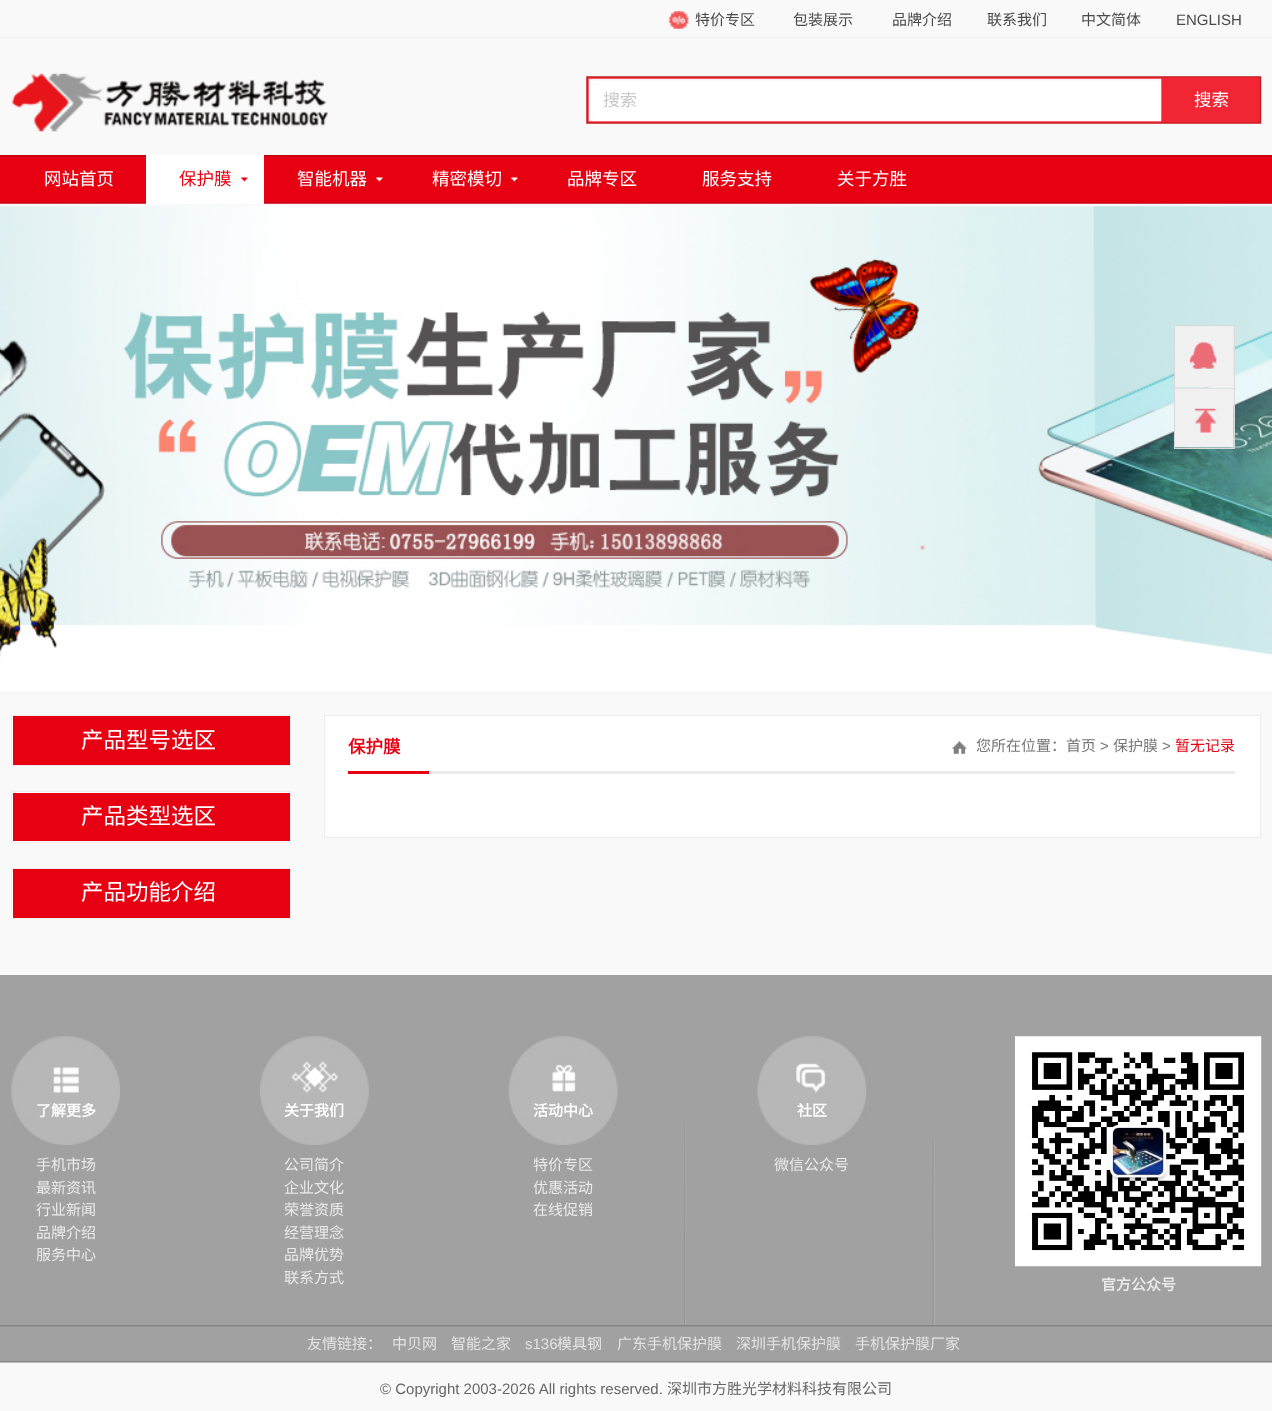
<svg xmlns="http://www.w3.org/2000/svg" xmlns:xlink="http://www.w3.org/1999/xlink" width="1272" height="1411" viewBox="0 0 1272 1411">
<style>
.cls-1{font:15px Noto Sans CJK SC;fill:#4a4a4a}
.cls-2{font:15px Liberation Sans;fill:#4a4a4a}
.cls-3{font:17px Noto Sans CJK SC;fill:#c7c7c7}
.cls-4{font:17.5px Noto Sans CJK SC;fill:#ffffff}
.cls-5{font:17.5px Noto Sans CJK SC;fill:#e60012}
.cls-6{font:22.5px Noto Sans CJK SC;fill:#ffffff}
.cls-7{font:bold 17.5px Noto Sans CJK SC;fill:#e60012}
.cls-8{font:15px Noto Sans CJK SC;fill:#767676}
.cls-9{font:15px Liberation Sans;fill:#767676}
.cls-10{font:15px Noto Sans CJK SC;fill:#e60012}
.cls-11{font:bold 15px Noto Sans CJK SC;fill:#ffffff}
.cls-12{font:15px Noto Sans CJK SC;fill:#eaeaea}
.cls-13{font:bold 15px Noto Sans CJK SC;fill:#eaeaea}
.cls-14{font:15px Noto Sans CJK SC;fill:#e4e4e4}
.cls-15{font:15px Liberation Sans;fill:#e4e4e4}
.cls-16{font:15px Liberation Sans;fill:#666666}
.cls-17{font:15px Noto Sans CJK SC;fill:#666666}
</style>
<rect width="100%" height="100%" fill="#f9f9f9"/>
<rect fill="#f6f6f6" x="0" y="36" width="1272" height="3"/>
<image xlink:href="image0.png" x="668" y="11" width="21" height="18"/>
<image xlink:href="image1.png" x="12" y="73" width="316" height="59"/>
<image xlink:href="image2.png" x="586" y="76" width="676" height="48"/>
<image xlink:href="image3.png" x="0" y="155" width="1272" height="49"/>
<rect fill="#ffffff" x="146" y="155" width="118" height="49"/>
<image xlink:href="image4.png" x="241" y="177" width="7" height="5"/>
<image xlink:href="image5.png" x="376" y="177" width="7" height="5"/>
<image xlink:href="image5.png" x="511" y="177" width="7" height="5"/>
<image xlink:href="image6.png" x="0" y="206" width="1272" height="485"/>
<rect fill="none" stroke="#d9d9d9" x="1174.5" y="325.5" width="60" height="123"/>
<image xlink:href="image7.png" x="1175" y="326" width="59" height="62"/>
<rect fill="#d9d9d9" x="1175" y="388" width="59" height="1"/>
<image xlink:href="image8.png" x="1175" y="388" width="59" height="60"/>
<rect fill="#ffffff" x="12" y="716" width="1" height="49"/>
<rect fill="none" stroke="#ededed" x="11.5" y="715.5" width="279" height="50"/>
<rect fill="#e60012" x="13" y="716" width="277" height="49"/>
<rect fill="#ffffff" stroke="#ededed" x="11.5" y="791.5" width="279" height="51"/>
<rect fill="#e60012" x="13" y="793" width="277" height="48"/>
<rect fill="#ffffff" x="12" y="869" width="1" height="49"/>
<rect fill="none" stroke="#ededed" x="11.5" y="868.5" width="279" height="50"/>
<rect fill="#e60012" x="13" y="869" width="277" height="49"/>
<rect fill="#ffffff" stroke="#ececec" x="324.5" y="715.5" width="936" height="122"/>
<rect fill="#ebebeb" x="429" y="771" width="806" height="3"/>
<rect fill="#e60012" x="348" y="771" width="81" height="3"/>
<image xlink:href="image9.png" x="952" y="741" width="15" height="13"/>
<rect fill="#a1a1a1" x="0" y="975" width="1272" height="350"/>
<image xlink:href="image10.png" x="11" y="1036" width="109" height="109"/>
<image xlink:href="image11.png" x="260" y="1036" width="109" height="109"/>
<image xlink:href="image12.png" x="684" y="1117" width="2" height="208"/>
<image xlink:href="image13.png" x="508" y="1036" width="110" height="109"/>
<image xlink:href="image14.png" x="932" y="1138" width="3" height="187"/>
<image xlink:href="image15.png" x="757" y="1036" width="110" height="109"/>
<image xlink:href="image16.png" x="1015" y="1036" width="247" height="231"/>
<image xlink:href="image17.png" x="0" y="1325" width="1272" height="38"/>
<text class="cls-1" x="695" y="25">特价专区</text>
<text class="cls-1" x="793" y="25">包装展示</text>
<text class="cls-1" x="892" y="25">品牌介绍</text>
<text class="cls-1" x="987" y="25">联系我们</text>
<text class="cls-1" x="1081" y="25">中文简体</text>
<text class="cls-2" x="1176" y="25">ENGLISH</text>
<text class="cls-3" x="603" y="106">搜索</text>
<text class="cls-4" x="1194" y="106">搜索</text>
<text class="cls-4" x="44" y="185">网站首页</text>
<text class="cls-5" x="179" y="185">保护膜</text>
<text class="cls-4" x="297" y="185">智能机器</text>
<text class="cls-4" x="432" y="185">精密模切</text>
<text class="cls-4" x="567" y="185">品牌专区</text>
<text class="cls-4" x="702" y="185">服务支持</text>
<text class="cls-4" x="837" y="185">关于方胜</text>
<text class="cls-6" x="81" y="748">产品型号选区</text>
<text class="cls-6" x="81" y="824">产品类型选区</text>
<text class="cls-6" x="81" y="900">产品功能介绍</text>
<text class="cls-7" x="348" y="753">保护膜</text>
<text class="cls-8" x="976" y="751">您所在位置：首页</text>
<text class="cls-9" x="1100" y="751">&gt;</text>
<text class="cls-8" x="1113" y="751">保护膜</text>
<text class="cls-9" x="1162" y="751">&gt;</text>
<text class="cls-10" x="1175" y="751">暂无记录</text>
<text class="cls-11" x="36" y="1116">了解更多</text>
<text class="cls-12"><tspan x="36" y="1170">手机市场</tspan><tspan x="36" y="1193">最新资讯</tspan><tspan x="36" y="1215">行业新闻</tspan><tspan x="36" y="1238">品牌介绍</tspan><tspan x="36" y="1260">服务中心</tspan></text>
<text class="cls-11" x="284" y="1116">关于我们</text>
<text class="cls-12"><tspan x="284" y="1170">公司简介</tspan><tspan x="284" y="1193">企业文化</tspan><tspan x="284" y="1215">荣誉资质</tspan><tspan x="284" y="1238">经营理念</tspan><tspan x="284" y="1260">品牌优势</tspan><tspan x="284" y="1283">联系方式</tspan></text>
<text class="cls-11" x="533" y="1116">活动中心</text>
<text class="cls-12"><tspan x="533" y="1170">特价专区</tspan><tspan x="533" y="1193">优惠活动</tspan><tspan x="533" y="1215">在线促销</tspan></text>
<text class="cls-11" x="797" y="1116">社区</text>
<text class="cls-12" x="774" y="1170">微信公众号</text>
<text class="cls-13" x="1101" y="1290">官方公众号</text>
<text class="cls-14" x="307" y="1349">友情链接：</text>
<text class="cls-14" x="392" y="1349">中贝网</text>
<text class="cls-14" x="451" y="1349">智能之家</text>
<text class="cls-15" x="525" y="1349">s136</text>
<text class="cls-14" x="557" y="1349">模具钢</text>
<text class="cls-14" x="617" y="1349">广东手机保护膜</text>
<text class="cls-14" x="736" y="1349">深圳手机保护膜</text>
<text class="cls-14" x="855" y="1349">手机保护膜厂家</text>
<text class="cls-16" x="380" y="1394">© Copyright 2003-2026 All rights reserved.</text>
<text class="cls-17" x="667" y="1394">深圳市方胜光学材料科技有限公司</text>
</svg>
